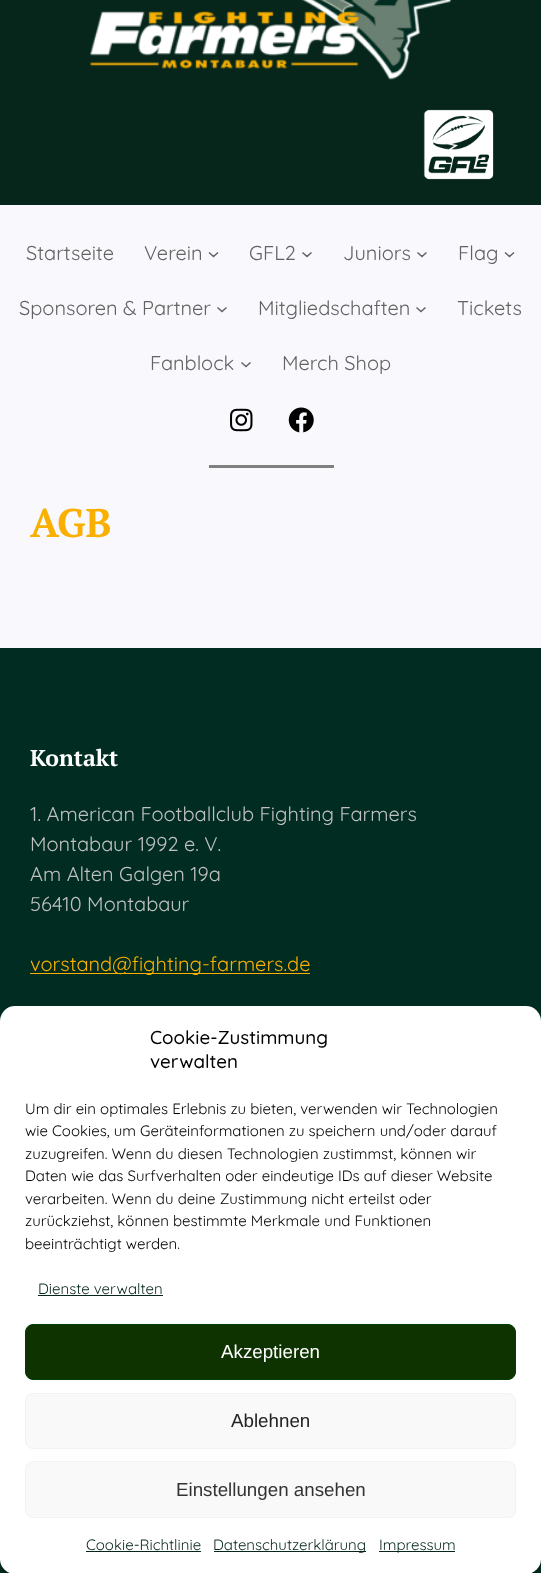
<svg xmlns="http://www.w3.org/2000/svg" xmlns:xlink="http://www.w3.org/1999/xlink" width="541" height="1573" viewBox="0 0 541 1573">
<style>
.cls-1{font:300 20px Quicksand;fill:#646363}
.cls-2{font:bold 40px PT Serif;fill:#f9b000}
.cls-3{font:bold 23px PT Serif;fill:#ffffff}
.cls-4{font:300 20px Quicksand;fill:#bfc0c0}
.cls-5{font:300 20px Quicksand;fill:#f9b000}
.cls-6{font:300 18.75px 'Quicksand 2';fill:#000000}
.cls-7{font:300 15px Quicksand;fill:#000000}
.cls-8{font:300 15px Quicksand;fill:#07261b}
.cls-9{font:18.75px Liberation Sans;fill:#ffffff}
.cls-10{font:18.75px Liberation Sans;fill:#222222}
.cls-11{font:18.75px Liberation Sans;fill:#333333}
</style>
<rect width="100%" height="100%" fill="#f8f8fd"/>
<rect fill="#07261b" x="0" y="0" width="541" height="205"/>
<image xlink:href="image0.png" x="90" y="0" width="362" height="80"/>
<image xlink:href="image1.png" x="423" y="109" width="71" height="71"/>
<path fill="none" stroke="#646363" stroke-width="1.5" d="M209 252.5L213.5 256.5L218 252.5"/>
<path fill="none" stroke="#646363" stroke-width="1.5" d="M302.5 252.5L307 256.5L311.5 252.5"/>
<path fill="none" stroke="#646363" stroke-width="1.5" d="M417.5 252.5L422 256.5L426.5 252.5"/>
<path fill="none" stroke="#646363" stroke-width="1.5" d="M505 252.5L509.5 256.5L514 252.5"/>
<path fill="none" stroke="#646363" stroke-width="1.5" d="M217.5 307.5L222 311.5L226.5 307.5"/>
<path fill="none" stroke="#646363" stroke-width="1.5" d="M416.5 307.5L421 311.5L425.5 307.5"/>
<path fill="none" stroke="#646363" stroke-width="1.5" d="M241.5 362.5L246 366.5L250.5 362.5"/>
<image xlink:href="image2.png" x="230" y="408" width="23" height="24"/>
<image xlink:href="image3.png" x="288" y="407" width="26" height="26"/>
<rect fill="#808080" x="209" y="465" width="125" height="3"/>
<rect fill="#002c21" x="0" y="648" width="541" height="925"/>
<rect fill="#f9b000" x="30" y="973" width="280" height="1"/>
<rect fill="#000000" fill-opacity="0.23" filter="blur(4px)" x="0" y="1014" width="541" height="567" rx="15"/>
<rect fill="#ffffff" x="0" y="1006" width="541" height="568" rx="15"/>
<rect fill="#07261b" x="38" y="1295" width="125" height="1"/>
<rect fill="#0e3300" stroke="#003f03" x="25.5" y="1324.5" width="490" height="55" rx="7.5"/>
<rect fill="#f9f9f9" stroke="#f2f2f2" x="25.5" y="1393.5" width="490" height="55" rx="7.5"/>
<rect fill="#f9f9f9" stroke="#f2f2f2" x="25.5" y="1461.5" width="490" height="56" rx="7.5"/>
<rect fill="#07261b" x="86" y="1551" width="115" height="1"/>
<rect fill="#07261b" x="214" y="1551" width="152" height="1"/>
<rect fill="#07261b" x="379" y="1551" width="76" height="1"/>
<text class="cls-1" x="26" y="260">Startseite</text>
<text class="cls-1" x="144" y="260">Verein</text>
<text class="cls-1" x="249" y="260">GFL2</text>
<text class="cls-1" x="343" y="260">Juniors</text>
<text class="cls-1" x="458" y="260">Flag</text>
<text class="cls-1" x="19" y="315">Sponsoren &amp; Partner</text>
<text class="cls-1" x="258" y="315">Mitgliedschaften</text>
<text class="cls-1" x="457" y="315">Tickets</text>
<text class="cls-1" x="150" y="370">Fanblock</text>
<text class="cls-1" x="282" y="370">Merch Shop</text>
<text class="cls-2" x="30" y="537">AGB</text>
<text class="cls-3" x="30" y="766">Kontakt</text>
<text class="cls-4"><tspan x="30" y="821">1. American Footballclub Fighting Farmers</tspan><tspan x="30" y="851">Montabaur 1992 e. V.</tspan><tspan x="30" y="881">Am Alten Galgen 19a</tspan><tspan x="30" y="911">56410 Montabaur</tspan></text>
<text class="cls-5" x="30" y="971">vorstand@fighting-farmers.de</text>
<text class="cls-6"><tspan x="150" y="1044">Cookie-Zustimmung</tspan><tspan x="150" y="1068">verwalten</tspan></text>
<text class="cls-7"><tspan x="25" y="1114">Um dir ein optimales Erlebnis zu bieten, verwenden wir Technologien</tspan><tspan x="25" y="1136">wie Cookies, um Geräteinformationen zu speichern und/oder darauf</tspan><tspan x="25" y="1159">zuzugreifen. Wenn du diesen Technologien zustimmst, können wir</tspan><tspan x="25" y="1181">Daten wie das Surfverhalten oder eindeutige IDs auf dieser Website</tspan><tspan x="25" y="1204">verarbeiten. Wenn du deine Zustimmung nicht erteilst oder</tspan><tspan x="25" y="1226">zurückziehst, können bestimmte Merkmale und Funktionen</tspan><tspan x="25" y="1249">beeinträchtigt werden.</tspan></text>
<text class="cls-8" x="38" y="1294">Dienste verwalten</text>
<text class="cls-9" x="221" y="1358">Akzeptieren</text>
<text class="cls-10" x="231" y="1427">Ablehnen</text>
<text class="cls-11" x="176" y="1496">Einstellungen ansehen</text>
<text class="cls-8" x="86" y="1550">Cookie-Richtlinie</text>
<text class="cls-8" x="213" y="1550">Datenschutzerklärung</text>
<text class="cls-8" x="379" y="1550">Impressum</text>
</svg>
